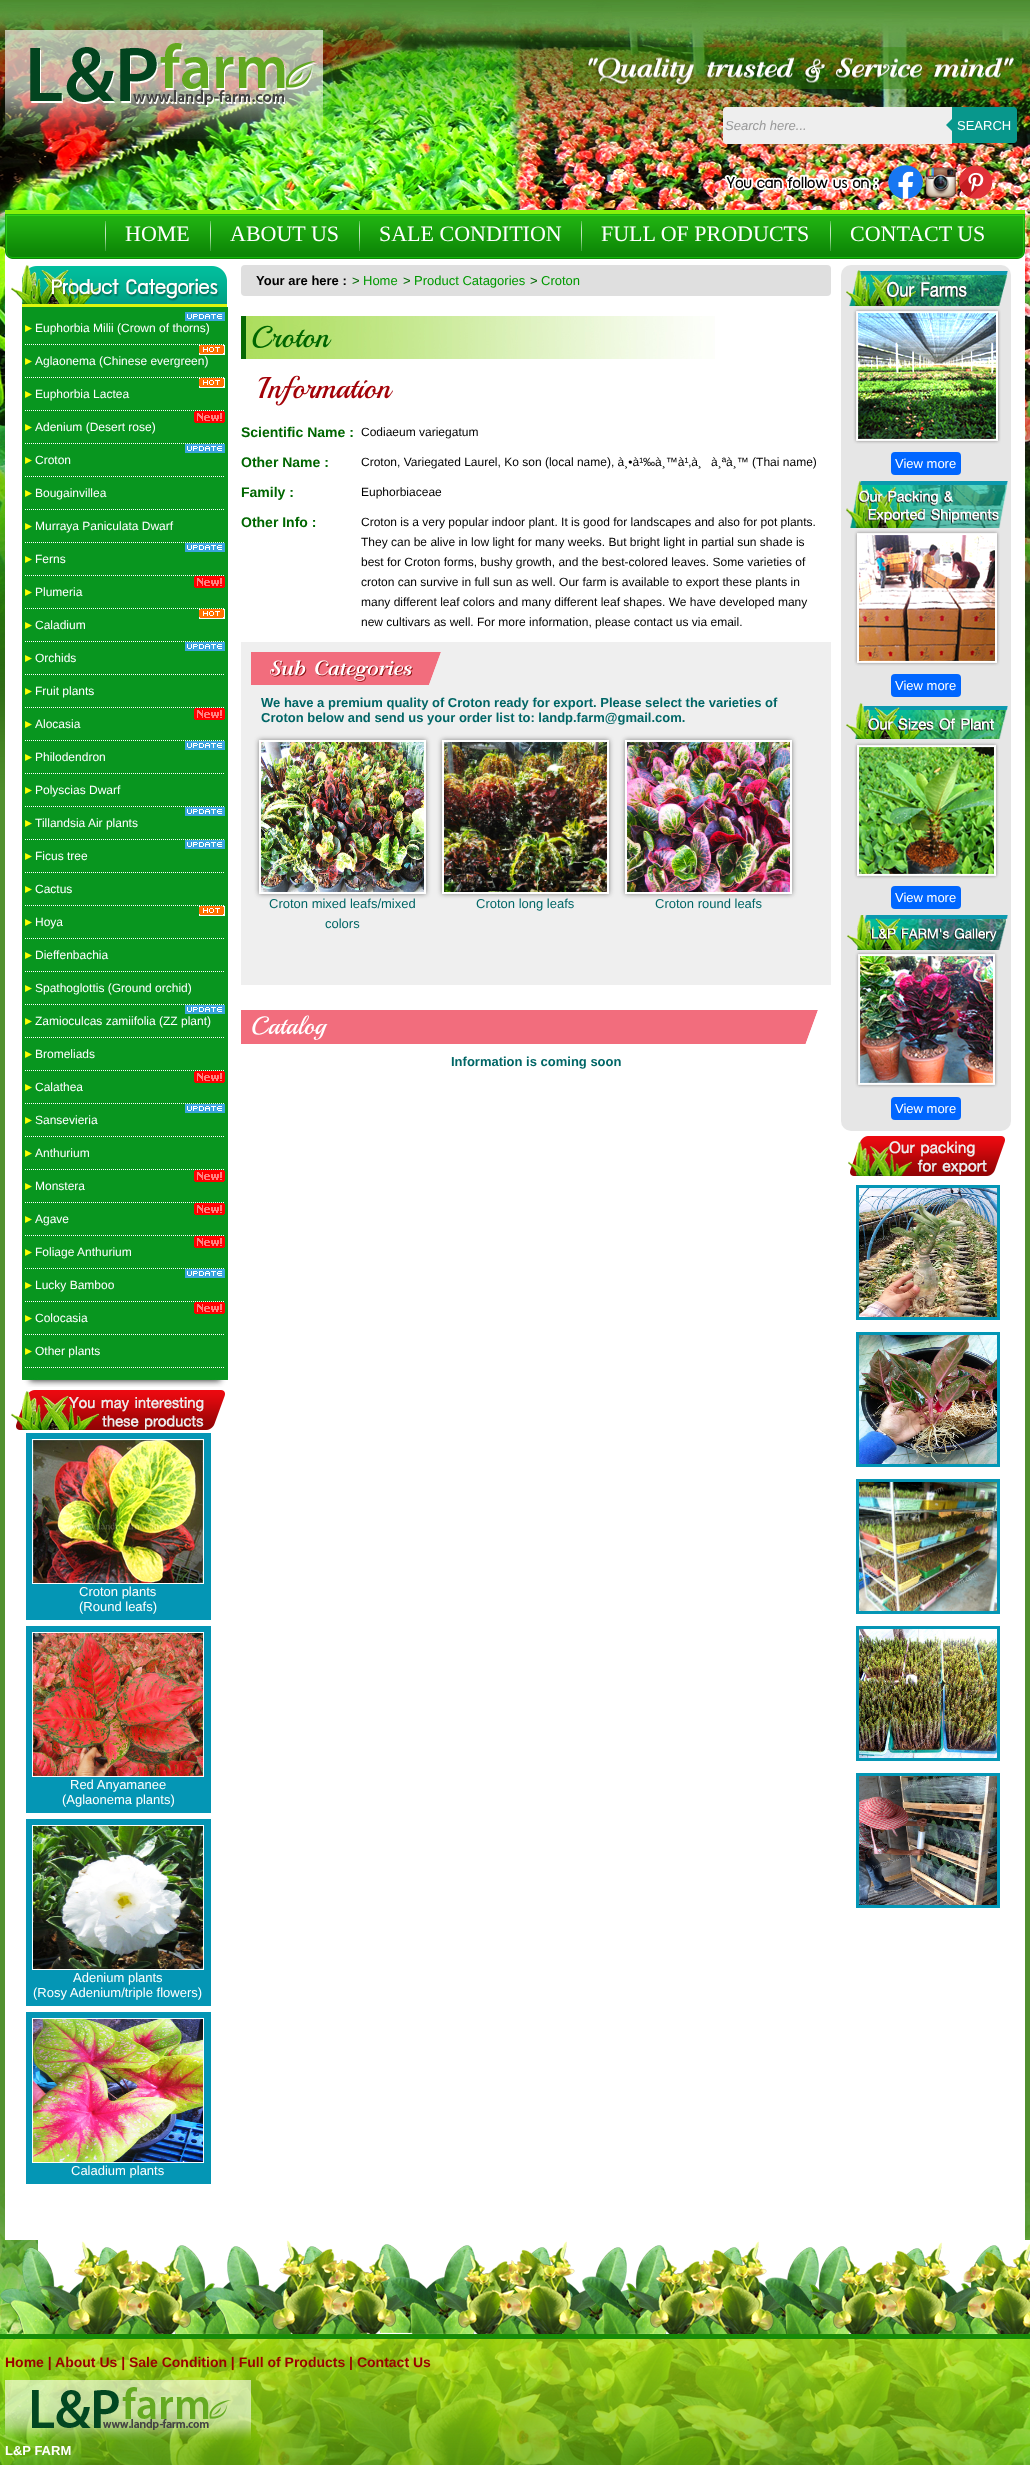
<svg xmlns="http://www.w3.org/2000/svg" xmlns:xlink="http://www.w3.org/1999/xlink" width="1030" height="2465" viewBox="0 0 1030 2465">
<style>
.cls-1{font:italic 13px Liberation Sans;fill:#999999}
.cls-2{font:13px Liberation Sans;fill:#ffffff}
.cls-3{font:22px Liberation Serif;fill:#ffffff}
.cls-4{font:12px Liberation Sans;fill:#ffffff}
.cls-5{font:bold 13px Liberation Sans;fill:#000000}
.cls-6{font:13px Liberation Sans;fill:#006600}
.cls-7{font:13px Liberation Sans;fill:#009900}
.cls-8{font:30px Playball;fill:#006600}
.cls-9{font:30px Playball;fill:#a30208}
.cls-10{font:bold 14px Liberation Sans;fill:#006600}
.cls-11{font:12px Liberation Sans;fill:#000000}
.cls-12{font:bold 13px Liberation Sans;fill:#006666}
.cls-13{font:13px Liberation Sans;fill:#006666}
.cls-14{font:25px Playball;fill:#ffffff}
.cls-15{font:bold 14px Liberation Sans;fill:#990000}
.cls-16{font:bold 13px Liberation Sans;fill:#ffffff}
</style>
<rect width="100%" height="100%" fill="#52902f"/>
<image xlink:href="image0.png" x="0" y="0" width="1030" height="790"/>
<image xlink:href="image1.png" x="0" y="2180" width="1030" height="285"/>
<image xlink:href="image2.png" x="5" y="30" width="318" height="109"/>
<image xlink:href="image3.png" x="573" y="47" width="449" height="42"/>
<path fill="#eeeeee" d="M726 107H952V144H726C724.5 144 723 142.5 723 141V110C723 108.5 724.5 107 726 107Z"/>
<path fill="#08978c" d="M952 107H1014C1015.5 107 1017 108.5 1017 110V140C1017 141.5 1015.5 143 1014 143H952Z"/>
<path fill="#08978c" d="M954 117V133L946 125Z"/>
<image xlink:href="image4.png" x="724" y="174" width="155" height="17"/>
<image xlink:href="image5.png" x="888" y="165" width="35" height="34"/>
<image xlink:href="image6.png" x="925" y="167" width="31" height="31"/>
<image xlink:href="image7.png" x="959" y="165" width="34" height="34"/>
<rect fill="#ffffff" x="5" y="210" width="1020" height="2030"/>
<image xlink:href="image8.png" x="5" y="210" width="1020" height="49"/>
<image xlink:href="image9.png" x="105" y="221" width="1" height="30"/>
<image xlink:href="image9.png" x="210" y="221" width="1" height="30"/>
<image xlink:href="image9.png" x="359" y="221" width="1" height="30"/>
<image xlink:href="image9.png" x="581" y="221" width="1" height="30"/>
<image xlink:href="image9.png" x="830" y="221" width="1" height="30"/>
<image xlink:href="image10.png" x="11" y="265" width="216" height="42"/>
<rect fill="#08961f" x="22" y="307" width="206" height="1071"/>
<image xlink:href="image11.png" x="25" y="325" width="7" height="7"/>
<path fill="none" stroke="#ffffff" stroke-dasharray="1 1" d="M25 344.5H225"/>
<image xlink:href="image12.png" x="185" y="312" width="40" height="9"/>
<image xlink:href="image11.png" x="25" y="358" width="7" height="7"/>
<path fill="none" stroke="#ffffff" stroke-dasharray="1 1" d="M25 377.5H225"/>
<image xlink:href="image13.png" x="199" y="345" width="26" height="10"/>
<image xlink:href="image11.png" x="25" y="391" width="7" height="7"/>
<path fill="none" stroke="#ffffff" stroke-dasharray="1 1" d="M25 410.5H225"/>
<image xlink:href="image13.png" x="199" y="378" width="26" height="10"/>
<image xlink:href="image11.png" x="25" y="424" width="7" height="7"/>
<path fill="none" stroke="#ffffff" stroke-dasharray="1 1" d="M25 443.5H225"/>
<image xlink:href="image14.png" x="194" y="411" width="31" height="12"/>
<image xlink:href="image11.png" x="25" y="457" width="7" height="7"/>
<path fill="none" stroke="#ffffff" stroke-dasharray="1 1" d="M25 476.5H225"/>
<image xlink:href="image12.png" x="185" y="444" width="40" height="9"/>
<image xlink:href="image11.png" x="25" y="490" width="7" height="7"/>
<path fill="none" stroke="#ffffff" stroke-dasharray="1 1" d="M25 509.5H225"/>
<image xlink:href="image11.png" x="25" y="523" width="7" height="7"/>
<path fill="none" stroke="#ffffff" stroke-dasharray="1 1" d="M25 542.5H225"/>
<image xlink:href="image11.png" x="25" y="556" width="7" height="7"/>
<path fill="none" stroke="#ffffff" stroke-dasharray="1 1" d="M25 575.5H225"/>
<image xlink:href="image12.png" x="185" y="543" width="40" height="9"/>
<image xlink:href="image11.png" x="25" y="589" width="7" height="7"/>
<path fill="none" stroke="#ffffff" stroke-dasharray="1 1" d="M25 608.5H225"/>
<image xlink:href="image14.png" x="194" y="576" width="31" height="12"/>
<image xlink:href="image11.png" x="25" y="622" width="7" height="7"/>
<path fill="none" stroke="#ffffff" stroke-dasharray="1 1" d="M25 641.5H225"/>
<image xlink:href="image13.png" x="199" y="609" width="26" height="10"/>
<image xlink:href="image11.png" x="25" y="655" width="7" height="7"/>
<path fill="none" stroke="#ffffff" stroke-dasharray="1 1" d="M25 674.5H225"/>
<image xlink:href="image12.png" x="185" y="642" width="40" height="9"/>
<image xlink:href="image11.png" x="25" y="688" width="7" height="7"/>
<path fill="none" stroke="#ffffff" stroke-dasharray="1 1" d="M25 707.5H225"/>
<image xlink:href="image11.png" x="25" y="721" width="7" height="7"/>
<path fill="none" stroke="#ffffff" stroke-dasharray="1 1" d="M25 740.5H225"/>
<image xlink:href="image14.png" x="194" y="708" width="31" height="12"/>
<image xlink:href="image11.png" x="25" y="754" width="7" height="7"/>
<path fill="none" stroke="#ffffff" stroke-dasharray="1 1" d="M25 773.5H225"/>
<image xlink:href="image12.png" x="185" y="741" width="40" height="9"/>
<image xlink:href="image11.png" x="25" y="787" width="7" height="7"/>
<path fill="none" stroke="#ffffff" stroke-dasharray="1 1" d="M25 806.5H225"/>
<image xlink:href="image11.png" x="25" y="820" width="7" height="7"/>
<path fill="none" stroke="#ffffff" stroke-dasharray="1 1" d="M25 839.5H225"/>
<image xlink:href="image12.png" x="185" y="807" width="40" height="9"/>
<image xlink:href="image11.png" x="25" y="853" width="7" height="7"/>
<path fill="none" stroke="#ffffff" stroke-dasharray="1 1" d="M25 872.5H225"/>
<image xlink:href="image12.png" x="185" y="840" width="40" height="9"/>
<image xlink:href="image11.png" x="25" y="886" width="7" height="7"/>
<path fill="none" stroke="#ffffff" stroke-dasharray="1 1" d="M25 905.5H225"/>
<image xlink:href="image11.png" x="25" y="919" width="7" height="7"/>
<path fill="none" stroke="#ffffff" stroke-dasharray="1 1" d="M25 938.5H225"/>
<image xlink:href="image13.png" x="199" y="906" width="26" height="10"/>
<image xlink:href="image11.png" x="25" y="952" width="7" height="7"/>
<path fill="none" stroke="#ffffff" stroke-dasharray="1 1" d="M25 971.5H225"/>
<image xlink:href="image11.png" x="25" y="985" width="7" height="7"/>
<path fill="none" stroke="#ffffff" stroke-dasharray="1 1" d="M25 1004.5H225"/>
<image xlink:href="image11.png" x="25" y="1018" width="7" height="7"/>
<path fill="none" stroke="#ffffff" stroke-dasharray="1 1" d="M25 1037.5H225"/>
<image xlink:href="image12.png" x="185" y="1005" width="40" height="9"/>
<image xlink:href="image11.png" x="25" y="1051" width="7" height="7"/>
<path fill="none" stroke="#ffffff" stroke-dasharray="1 1" d="M25 1070.5H225"/>
<image xlink:href="image11.png" x="25" y="1084" width="7" height="7"/>
<path fill="none" stroke="#ffffff" stroke-dasharray="1 1" d="M25 1103.5H225"/>
<image xlink:href="image14.png" x="194" y="1071" width="31" height="12"/>
<image xlink:href="image11.png" x="25" y="1117" width="7" height="7"/>
<path fill="none" stroke="#ffffff" stroke-dasharray="1 1" d="M25 1136.5H225"/>
<image xlink:href="image12.png" x="185" y="1104" width="40" height="9"/>
<image xlink:href="image11.png" x="25" y="1150" width="7" height="7"/>
<path fill="none" stroke="#ffffff" stroke-dasharray="1 1" d="M25 1169.5H225"/>
<image xlink:href="image11.png" x="25" y="1183" width="7" height="7"/>
<path fill="none" stroke="#ffffff" stroke-dasharray="1 1" d="M25 1202.5H225"/>
<image xlink:href="image14.png" x="194" y="1170" width="31" height="12"/>
<image xlink:href="image11.png" x="25" y="1216" width="7" height="7"/>
<path fill="none" stroke="#ffffff" stroke-dasharray="1 1" d="M25 1235.5H225"/>
<image xlink:href="image14.png" x="194" y="1203" width="31" height="12"/>
<image xlink:href="image11.png" x="25" y="1249" width="7" height="7"/>
<path fill="none" stroke="#ffffff" stroke-dasharray="1 1" d="M25 1268.5H225"/>
<image xlink:href="image14.png" x="194" y="1236" width="31" height="12"/>
<image xlink:href="image11.png" x="25" y="1282" width="7" height="7"/>
<path fill="none" stroke="#ffffff" stroke-dasharray="1 1" d="M25 1301.5H225"/>
<image xlink:href="image12.png" x="185" y="1269" width="40" height="9"/>
<image xlink:href="image11.png" x="25" y="1315" width="7" height="7"/>
<path fill="none" stroke="#ffffff" stroke-dasharray="1 1" d="M25 1334.5H225"/>
<image xlink:href="image14.png" x="194" y="1302" width="31" height="12"/>
<image xlink:href="image11.png" x="25" y="1348" width="7" height="7"/>
<path fill="none" stroke="#ffffff" stroke-dasharray="1 1" d="M25 1367.5H225"/>
<image xlink:href="image15.png" x="22" y="1378" width="206" height="9"/>
<image xlink:href="image16.png" x="11" y="1390" width="214" height="40"/>
<rect fill="#0496b5" x="26" y="1433" width="185" height="187"/>
<rect fill="none" stroke="#ffffff" x="32.5" y="1439.5" width="171" height="144"/>
<image xlink:href="image17.png" x="33" y="1440" width="170" height="143"/>
<rect fill="#0496b5" x="26" y="1626" width="185" height="187"/>
<rect fill="none" stroke="#ffffff" x="32.5" y="1632.5" width="171" height="144"/>
<image xlink:href="image18.png" x="33" y="1633" width="170" height="143"/>
<rect fill="#0496b5" x="26" y="1819" width="185" height="187"/>
<rect fill="none" stroke="#ffffff" x="32.5" y="1825.5" width="171" height="144"/>
<image xlink:href="image19.png" x="33" y="1826" width="170" height="143"/>
<rect fill="#0496b5" x="26" y="2012" width="185" height="172"/>
<rect fill="none" stroke="#ffffff" x="32.5" y="2018.5" width="171" height="144"/>
<image xlink:href="image20.png" x="33" y="2019" width="170" height="143"/>
<rect fill="#dfdfdf" x="241" y="265" width="590" height="31" rx="4"/>
<image xlink:href="image21.png" x="241" y="316" width="474" height="43"/>
<rect fill="#efefef" x="241" y="642" width="590" height="343"/>
<image xlink:href="image22.png" x="251" y="652" width="190" height="33"/>
<rect fill="#323232" fill-opacity="0.6" filter="blur(2.5px)" x="259" y="740" width="167" height="154"/>
<rect fill="none" stroke="#ffffff" stroke-width="2" x="260" y="741" width="165" height="152"/>
<image xlink:href="image23.png" x="261" y="742" width="163" height="150"/>
<rect fill="#323232" fill-opacity="0.6" filter="blur(2.5px)" x="442" y="740" width="167" height="154"/>
<rect fill="none" stroke="#ffffff" stroke-width="2" x="443" y="741" width="165" height="152"/>
<image xlink:href="image24.png" x="444" y="742" width="163" height="150"/>
<rect fill="#323232" fill-opacity="0.6" filter="blur(2.5px)" x="625" y="740" width="167" height="154"/>
<rect fill="none" stroke="#ffffff" stroke-width="2" x="626" y="741" width="165" height="152"/>
<image xlink:href="image25.png" x="627" y="742" width="163" height="150"/>
<image xlink:href="image26.png" x="241" y="1010" width="577" height="34"/>
<rect fill="#e6e6e6" x="841" y="265" width="170" height="866" rx="10"/>
<image xlink:href="image27.png" x="846" y="270" width="162" height="36"/>
<image xlink:href="image28.png" x="853" y="308" width="148" height="136"/>
<rect fill="#0066ff" x="891" y="452" width="70" height="23" rx="4"/>
<image xlink:href="image29.png" x="846" y="481" width="162" height="47"/>
<image xlink:href="image30.png" x="854" y="530" width="146" height="136"/>
<rect fill="#0066ff" x="891" y="674" width="70" height="23" rx="4"/>
<image xlink:href="image31.png" x="846" y="703" width="162" height="36"/>
<image xlink:href="image32.png" x="854" y="742" width="145" height="137"/>
<rect fill="#0066ff" x="891" y="886" width="70" height="23" rx="4"/>
<image xlink:href="image33.png" x="847" y="915" width="161" height="35"/>
<image xlink:href="image34.png" x="855" y="951" width="143" height="137"/>
<rect fill="#0066ff" x="891" y="1097" width="70" height="23" rx="4"/>
<image xlink:href="image35.png" x="848" y="1136" width="157" height="40"/>
<rect fill="none" stroke="#0496b5" stroke-width="3" x="857.5" y="1186.5" width="141" height="132"/>
<image xlink:href="image36.png" x="859" y="1188" width="138" height="129"/>
<rect fill="none" stroke="#0496b5" stroke-width="3" x="857.5" y="1333.5" width="141" height="132"/>
<image xlink:href="image37.png" x="859" y="1335" width="138" height="129"/>
<rect fill="none" stroke="#0496b5" stroke-width="3" x="857.5" y="1480.5" width="141" height="132"/>
<image xlink:href="image38.png" x="859" y="1482" width="138" height="129"/>
<rect fill="none" stroke="#0496b5" stroke-width="3" x="857.5" y="1627.5" width="141" height="132"/>
<image xlink:href="image39.png" x="859" y="1629" width="138" height="129"/>
<rect fill="none" stroke="#0496b5" stroke-width="3" x="857.5" y="1774.5" width="141" height="132"/>
<image xlink:href="image40.png" x="859" y="1776" width="138" height="129"/>
<image xlink:href="image41.png" x="0" y="2240" width="1030" height="94"/>
<image xlink:href="image42.png" x="0" y="2334" width="1030" height="131"/>
<image xlink:href="image43.png" x="5" y="2380" width="246" height="60"/>
<text class="cls-1" x="725" y="130">Search here...</text>
<text class="cls-2" x="957" y="130">SEARCH</text>
<text class="cls-3" x="125" y="241">HOME</text>
<text class="cls-3" x="230" y="241">ABOUT US</text>
<text class="cls-3" x="379" y="241">SALE CONDITION</text>
<text class="cls-3" x="601" y="241">FULL OF PRODUCTS</text>
<text class="cls-3" x="850" y="241">CONTACT US</text>
<text class="cls-4" x="35" y="332">Euphorbia Milii (Crown of thorns)</text>
<text class="cls-4" x="35" y="365">Aglaonema (Chinese evergreen)</text>
<text class="cls-4" x="35" y="398">Euphorbia Lactea</text>
<text class="cls-4" x="35" y="431">Adenium (Desert rose)</text>
<text class="cls-4" x="35" y="464">Croton</text>
<text class="cls-4" x="35" y="497">Bougainvillea</text>
<text class="cls-4" x="35" y="530">Murraya Paniculata Dwarf</text>
<text class="cls-4" x="35" y="563">Ferns</text>
<text class="cls-4" x="35" y="596">Plumeria</text>
<text class="cls-4" x="35" y="629">Caladium</text>
<text class="cls-4" x="35" y="662">Orchids</text>
<text class="cls-4" x="35" y="695">Fruit plants</text>
<text class="cls-4" x="35" y="728">Alocasia</text>
<text class="cls-4" x="35" y="761">Philodendron</text>
<text class="cls-4" x="35" y="794">Polyscias Dwarf</text>
<text class="cls-4" x="35" y="827">Tillandsia Air plants</text>
<text class="cls-4" x="35" y="860">Ficus tree</text>
<text class="cls-4" x="35" y="893">Cactus</text>
<text class="cls-4" x="35" y="926">Hoya</text>
<text class="cls-4" x="35" y="959">Dieffenbachia</text>
<text class="cls-4" x="35" y="992">Spathoglottis (Ground orchid)</text>
<text class="cls-4" x="35" y="1025">Zamioculcas zamiifolia (ZZ plant)</text>
<text class="cls-4" x="35" y="1058">Bromeliads</text>
<text class="cls-4" x="35" y="1091">Calathea</text>
<text class="cls-4" x="35" y="1124">Sansevieria</text>
<text class="cls-4" x="35" y="1157">Anthurium</text>
<text class="cls-4" x="35" y="1190">Monstera</text>
<text class="cls-4" x="35" y="1223">Agave</text>
<text class="cls-4" x="35" y="1256">Foliage Anthurium</text>
<text class="cls-4" x="35" y="1289">Lucky Bamboo</text>
<text class="cls-4" x="35" y="1322">Colocasia</text>
<text class="cls-4" x="35" y="1355">Other plants</text>
<text class="cls-2"><tspan x="79" y="1596">Croton plants</tspan><tspan x="79" y="1611">(Round leafs)</tspan></text>
<text class="cls-2" x="70" y="1789">Red Anyamanee</text>
<text class="cls-2" x="62" y="1804">(Aglaonema plants)</text>
<text class="cls-2" x="73" y="1982">Adenium plants</text>
<text class="cls-2" x="33" y="1997">(Rosy Adenium/triple flowers)</text>
<text class="cls-2" x="71" y="2175">Caladium plants</text>
<text class="cls-5" x="256" y="285">Your are here :</text>
<text class="cls-6" x="352" y="285">&gt;</text>
<text class="cls-7" x="363" y="285">Home</text>
<text class="cls-6" x="403" y="285">&gt;</text>
<text class="cls-7" x="414" y="285">Product Catagories</text>
<text class="cls-6" x="530" y="285">&gt;</text>
<text class="cls-7" x="541" y="285">Croton</text>
<text class="cls-8" x="251" y="347">Croton</text>
<text class="cls-9" x="258" y="398">Information</text>
<text class="cls-10" x="241" y="437">Scientific Name :</text>
<text class="cls-11" x="361" y="436">Codiaeum variegatum</text>
<text class="cls-10" x="241" y="467">Other Name :</text>
<text class="cls-11" x="361" y="466">Croton, Variegated Laurel, Ko son (local name), à¸•à¹‰à¸™à¹‚à¸</text>
<text class="cls-11" x="711" y="466">à¸ªà¸™ (Thai name)</text>
<text class="cls-10" x="241" y="497">Family :</text>
<text class="cls-11" x="361" y="496">Euphorbiaceae</text>
<text class="cls-10" x="241" y="527">Other Info :</text>
<text class="cls-11"><tspan x="361" y="526">Croton is a very popular indoor plant. It is good for landscapes and also for pot plants.</tspan><tspan x="361" y="546">They can be alive in low light for many weeks. But bright light in partial sun shade is</tspan><tspan x="361" y="566">best for Croton forms, bushy growth, and the best-colored leaves. Some varieties of</tspan><tspan x="361" y="586">croton can survive in full sun as well. Our farm is available to export these plants in</tspan><tspan x="361" y="606">many different leaf colors and many different leaf shapes. We have developed many</tspan><tspan x="361" y="626">new cultivars as well. For more information, please contact us via email.</tspan></text>
<text class="cls-12"><tspan x="261" y="707">We have a premium quality of Croton ready for export. Please select the varieties of</tspan><tspan x="261" y="722">Croton below and send us your order list to: landp.farm@gmail.com.</tspan></text>
<text class="cls-13" x="269" y="908">Croton mixed leafs/mixed</text>
<text class="cls-13" x="325" y="928">colors</text>
<text class="cls-13" x="476" y="908">Croton long leafs</text>
<text class="cls-13" x="655" y="908">Croton round leafs</text>
<text class="cls-14" x="251" y="1034">Catalog</text>
<text class="cls-12" x="451" y="1066">Information is coming soon</text>
<text class="cls-2" x="895" y="468">View more</text>
<text class="cls-2" x="895" y="690">View more</text>
<text class="cls-2" x="895" y="902">View more</text>
<text class="cls-2" x="895" y="1113">View more</text>
<text class="cls-15" x="5" y="2367">Home | About Us | Sale Condition | Full of Products | Contact Us</text>
<text class="cls-16" x="5" y="2455">L&amp;P FARM</text>
</svg>
